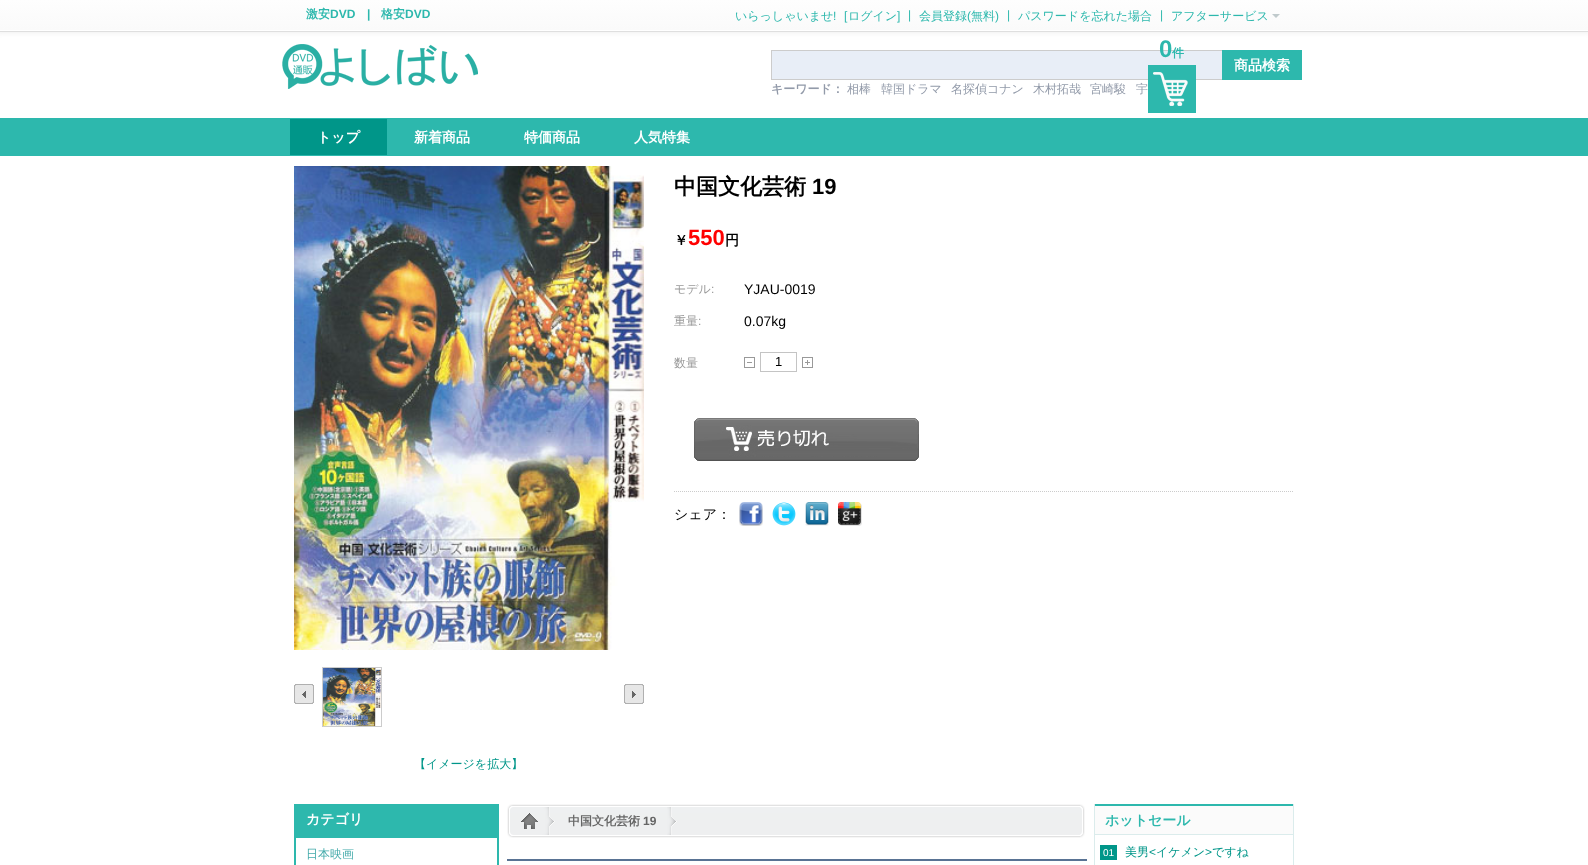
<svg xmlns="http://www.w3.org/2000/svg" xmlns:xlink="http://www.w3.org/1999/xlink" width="1588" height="865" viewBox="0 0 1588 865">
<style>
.cls-1{font:bold 12px WenQuanYi Zen Hei;fill:#2db8ad}
.cls-2{font:bold 12px Liberation Sans;fill:#2db8ad}
.cls-3{font:500 12px WenQuanYi Zen Hei;fill:#2db8ad}
.cls-4{font:12px Liberation Sans;fill:#2db8ad}
.cls-5{font:bold 24px Liberation Sans;fill:#2db8ad}
.cls-6{font:bold 14px WenQuanYi Zen Hei;fill:#ffffff}
.cls-7{font:bold 12px WenQuanYi Zen Hei;fill:#929aa9}
.cls-8{font:500 12px WenQuanYi Zen Hei;fill:#929aa9}
.cls-9{font:bold 22px WenQuanYi Zen Hei;fill:#000000}
.cls-10{font:bold 22px Liberation Sans;fill:#000000}
.cls-11{font:bold 14px WenQuanYi Zen Hei;fill:#000000}
.cls-12{font:bold 22px Liberation Sans;fill:#ff0000}
.cls-13{font:500 12px WenQuanYi Zen Hei;fill:#999999}
.cls-14{font:12px Liberation Sans;fill:#999999}
.cls-15{font:14px Liberation Sans;fill:#000000}
.cls-16{font:13px Liberation Sans;fill:#000000}
.cls-17{font:500 14px WenQuanYi Zen Hei;fill:#000000}
.cls-18{font:500 12px WenQuanYi Zen Hei;fill:#009689}
.cls-19{font:500 12px WenQuanYi Zen Hei;fill:#45abab}
.cls-20{font:bold 12px WenQuanYi Zen Hei;fill:#666666}
.cls-21{font:bold 12px Liberation Sans;fill:#666666}
.cls-22{font:bold 14px WenQuanYi Zen Hei;fill:#2db8ad}
.cls-23{font:10px Liberation Sans;fill:#ffffff}
.cls-24{font:12px Liberation Sans;fill:#009689}
</style>
<defs>
<linearGradient id="g1" gradientUnits="userSpaceOnUse" x1="794" y1="0" x2="794" y2="30"><stop offset="0" stop-color="#fefefe"/><stop offset="1" stop-color="#fafafa"/></linearGradient>
</defs>
<rect width="100%" height="100%" fill="#ffffff"/>
<rect fill="#f0f0f0" filter="blur(2.5px)" x="-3" y="-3" width="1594" height="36"/>
<rect fill="none" stroke="#dfdfdf" stroke-width="2" x="-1" y="-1" width="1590" height="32"/>
<rect fill="none" stroke="#ffffff" x="-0.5" y="-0.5" width="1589" height="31"/>
<rect fill="url(#g1)" x="0" y="0" width="1588" height="30"/>
<path fill="#c0cacc" d="M1272 14H1280L1276 18Z"/>
<rect fill="#2db8ad" x="0" y="118" width="1588" height="38"/>
<rect fill="#e8eef7" x="772" y="51" width="450" height="28"/>
<rect fill="#cccccc" x="771" y="79" width="451" height="1"/>
<image xlink:href="image0.png" x="1148" y="65" width="48" height="48"/>
<rect fill="#009689" x="290" y="119" width="97" height="36"/>
<image xlink:href="image1.png" x="282" y="44" width="196" height="45"/>
<rect fill="#cccccc" x="771" y="50" width="451" height="1"/>
<rect fill="#cccccc" x="771" y="50" width="1" height="30"/>
<rect fill="#2db8ad" x="1222" y="50" width="80" height="30"/>
<image xlink:href="image2.png" x="744" y="357" width="11" height="11"/>
<rect fill="none" stroke="#c4c4c4" x="760.5" y="352.5" width="36" height="19"/>
<image xlink:href="image3.png" x="802" y="357" width="11" height="11"/>
<image xlink:href="image4.png" x="694" y="418" width="225" height="43"/>
<path fill="none" stroke="#cccccc" stroke-dasharray="1 1" d="M674 491.5H1294"/>
<image xlink:href="image5.png" x="739" y="502" width="24" height="24"/>
<image xlink:href="image6.png" x="772" y="502" width="24" height="24"/>
<image xlink:href="image7.png" x="805" y="502" width="24" height="24"/>
<image xlink:href="image8.png" x="838" y="502" width="24" height="24"/>
<image xlink:href="image9.png" x="294" y="166" width="350" height="484"/>
<rect fill="none" stroke="#cccccc" x="322.5" y="667.5" width="59" height="59"/>
<image xlink:href="image10.png" x="323" y="668" width="58" height="58"/>
<image xlink:href="image11.png" x="294" y="684" width="20" height="20"/>
<image xlink:href="image12.png" x="624" y="684" width="20" height="20"/>
<rect fill="#2db8ad" x="497" y="804" width="2" height="61"/>
<rect fill="#2db8ad" x="294" y="804" width="2" height="61"/>
<rect fill="#2db8ad" x="296" y="804" width="201" height="34"/>
<image xlink:href="image13.png" x="556" y="804" width="524" height="34"/>
<image xlink:href="image14.png" x="507" y="804" width="49" height="34"/>
<image xlink:href="image15.png" x="667" y="807" width="10" height="28"/>
<image xlink:href="image16.png" x="1080" y="804" width="5" height="34"/>
<rect fill="#597394" x="507" y="859" width="580" height="2"/>
<rect fill="#dbecec" x="1293" y="804" width="1" height="61"/>
<rect fill="#dbecec" x="1094" y="804" width="1" height="61"/>
<rect fill="#fbfbfb" x="1095" y="806" width="198" height="28"/>
<rect fill="#2db8ad" x="1095" y="804" width="198" height="2"/>
<rect fill="#dbecec" x="1095" y="834" width="198" height="1"/>
<rect fill="#009689" x="1100" y="845" width="17" height="15"/>
<text class="cls-1" x="306" y="18">激安</text>
<text class="cls-2" x="330" y="18">DVD</text>
<text class="cls-2" x="367" y="18">|</text>
<text class="cls-1" x="381" y="18">格安</text>
<text class="cls-2" x="405" y="18">DVD</text>
<text class="cls-3" x="735" y="20">いらっしゃいませ</text>
<text class="cls-4" x="833" y="20">!</text>
<text class="cls-4" x="844" y="20">[</text>
<text class="cls-3" x="848" y="20">ログイン</text>
<text class="cls-4" x="897" y="20">]</text>
<text class="cls-4" x="908" y="19">|</text>
<text class="cls-3" x="919" y="20">会員登録</text>
<text class="cls-4" x="967" y="20">(</text>
<text class="cls-3" x="971" y="20">無料</text>
<text class="cls-4" x="995" y="20">)</text>
<text class="cls-4" x="1007" y="19">|</text>
<text class="cls-3" x="1018" y="20">パスワードを忘れた場合</text>
<text class="cls-4" x="1160" y="19">|</text>
<text class="cls-3" x="1171" y="20">アフターサービス</text>
<text class="cls-5" x="1159" y="57">0</text>
<text class="cls-1" x="1172" y="57">件</text>
<text class="cls-6" x="317" y="142">トップ</text>
<text class="cls-6" x="414" y="142">新着商品</text>
<text class="cls-6" x="524" y="142">特価商品</text>
<text class="cls-6" x="634" y="142">人気特集</text>
<text class="cls-6" x="1234" y="70">商品検索</text>
<text class="cls-7" x="771" y="93">キーワード：</text>
<text class="cls-8" x="847" y="93">相棒</text>
<text class="cls-8" x="881" y="93">韓国ドラマ</text>
<text class="cls-8" x="951" y="93">名探偵コナン</text>
<text class="cls-8" x="1033" y="93">木村拓哉</text>
<text class="cls-8" x="1090" y="93">宮崎駿</text>
<text class="cls-8" x="1136" y="93">宇</text>
<text class="cls-9" x="674" y="194">中国文化芸術</text>
<text class="cls-10" x="812" y="194">19</text>
<text class="cls-11" x="674" y="245">￥</text>
<text class="cls-12" x="688" y="245">550</text>
<text class="cls-11" x="725" y="245">円</text>
<text class="cls-13" x="674" y="293">モデル</text>
<text class="cls-14" x="711" y="293">:</text>
<text class="cls-15" x="744" y="294">YJAU-0019</text>
<text class="cls-13" x="674" y="325">重量</text>
<text class="cls-14" x="698" y="325">:</text>
<text class="cls-15" x="744" y="326">0.07kg</text>
<text class="cls-13" x="674" y="367">数量</text>
<text class="cls-16" x="775" y="366">1</text>
<text class="cls-17" x="674" y="519">シェア：</text>
<text class="cls-18" x="414" y="768">【イメージを拡大】</text>
<text class="cls-6" x="306" y="824">カテゴリ</text>
<text class="cls-19" x="306" y="858">日本映画</text>
<text class="cls-20" x="568" y="825">中国文化芸術</text>
<text class="cls-21" x="643" y="825">19</text>
<text class="cls-22" x="1105" y="825">ホットセール</text>
<text class="cls-23" x="1103" y="856">01</text>
<text class="cls-18" x="1125" y="856">美男</text>
<text class="cls-24" x="1149" y="856">&lt;</text>
<text class="cls-18" x="1156" y="856">イケメン</text>
<text class="cls-24" x="1205" y="856">&gt;</text>
<text class="cls-18" x="1212" y="856">ですね</text>
</svg>
